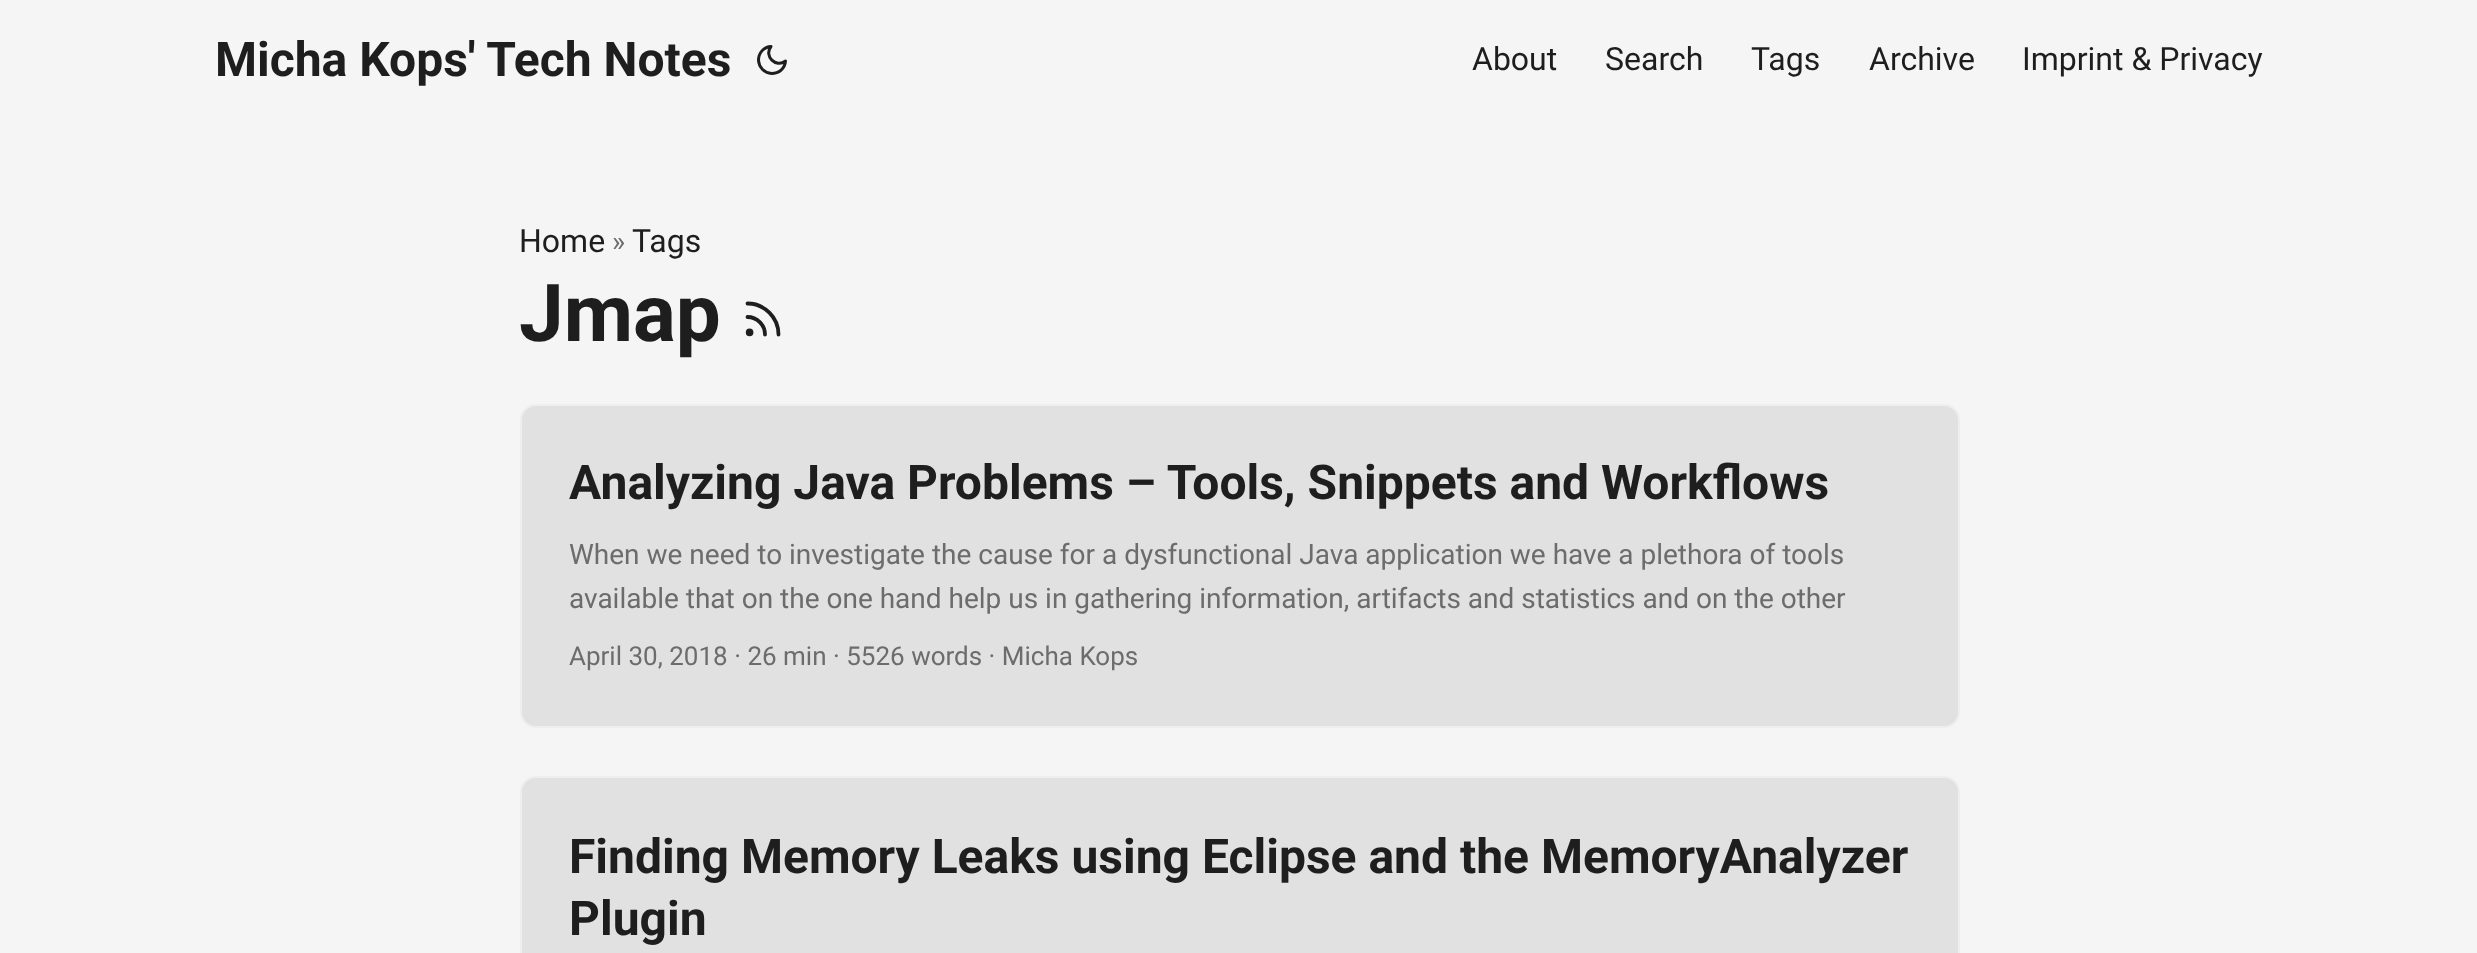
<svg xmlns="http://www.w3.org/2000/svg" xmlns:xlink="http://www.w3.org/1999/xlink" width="2477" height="953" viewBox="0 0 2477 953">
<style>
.cls-1{font:bold 48px Roboto;fill:#1e1e1e}
.cls-2{font:32px Roboto;fill:#1e1e1e}
.cls-3{font:28px Roboto;fill:#6c6c6c}
.cls-4{font:bold 80px Roboto;fill:#1e1e1e}
.cls-5{font:26px Roboto;fill:#6c6c6c}
</style>
<rect width="100%" height="100%" fill="#f5f5f5"/>
<path fill="none" stroke="#1e1e1e" stroke-width="3" stroke-linecap="round" stroke-linejoin="round" d="M785.5 61C785 68.5 779 73.5 771.5 73.5C764.5 73 759 67.5 758.5 60.5C758.5 53 763.5 47 771 46.5C763.5 56 776 68.5 785.5 61Z"/>
<path fill="none" stroke="#1e1e1e" stroke-width="3.8" stroke-linecap="round" stroke-linejoin="round" d="M747.5 317C757 317 765 325 765 334.5M747.5 303.5C764.5 303.5 778.5 317.5 778.5 334.5"/>
<circle fill="none" stroke="#1e1e1e" stroke-width="3.8" cx="749.6" cy="332.4" r="1.9"/>
<rect fill="#e1e1e1" stroke="#eeeeee" stroke-width="2" x="521" y="405" width="1438" height="322" rx="15"/>
<rect fill="#e1e1e1" stroke="#eeeeee" stroke-width="2" x="521" y="777" width="1438" height="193" rx="15"/>
<text class="cls-1" x="215" y="76">Micha Kops' Tech Notes</text>
<text class="cls-2" x="1472" y="70">About</text>
<text class="cls-2" x="1605" y="70">Search</text>
<text class="cls-2" x="1751" y="70">Tags</text>
<text class="cls-2" x="1869" y="70">Archive</text>
<text class="cls-2" x="2022" y="70">Imprint &amp; Privacy</text>
<text class="cls-2" x="519" y="252">Home</text>
<text class="cls-3" x="612" y="251">»</text>
<text class="cls-2" x="632" y="252">Tags</text>
<text class="cls-4" x="519" y="341">Jmap</text>
<text class="cls-1" x="569" y="499">Analyzing Java Problems – Tools, Snippets and Workflows</text>
<text class="cls-3"><tspan x="569" y="564">When we need to investigate the cause for a dysfunctional Java application we have a plethora of tools</tspan><tspan x="569" y="608">available that on the one hand help us in gathering information, artifacts and statistics and on the other</tspan></text>
<text class="cls-5" x="569" y="665">April 30, 2018 · 26 min · 5526 words · Micha Kops</text>
<text class="cls-1"><tspan x="569" y="873">Finding Memory Leaks using Eclipse and the MemoryAnalyzer</tspan><tspan x="569" y="935">Plugin</tspan></text>
</svg>
